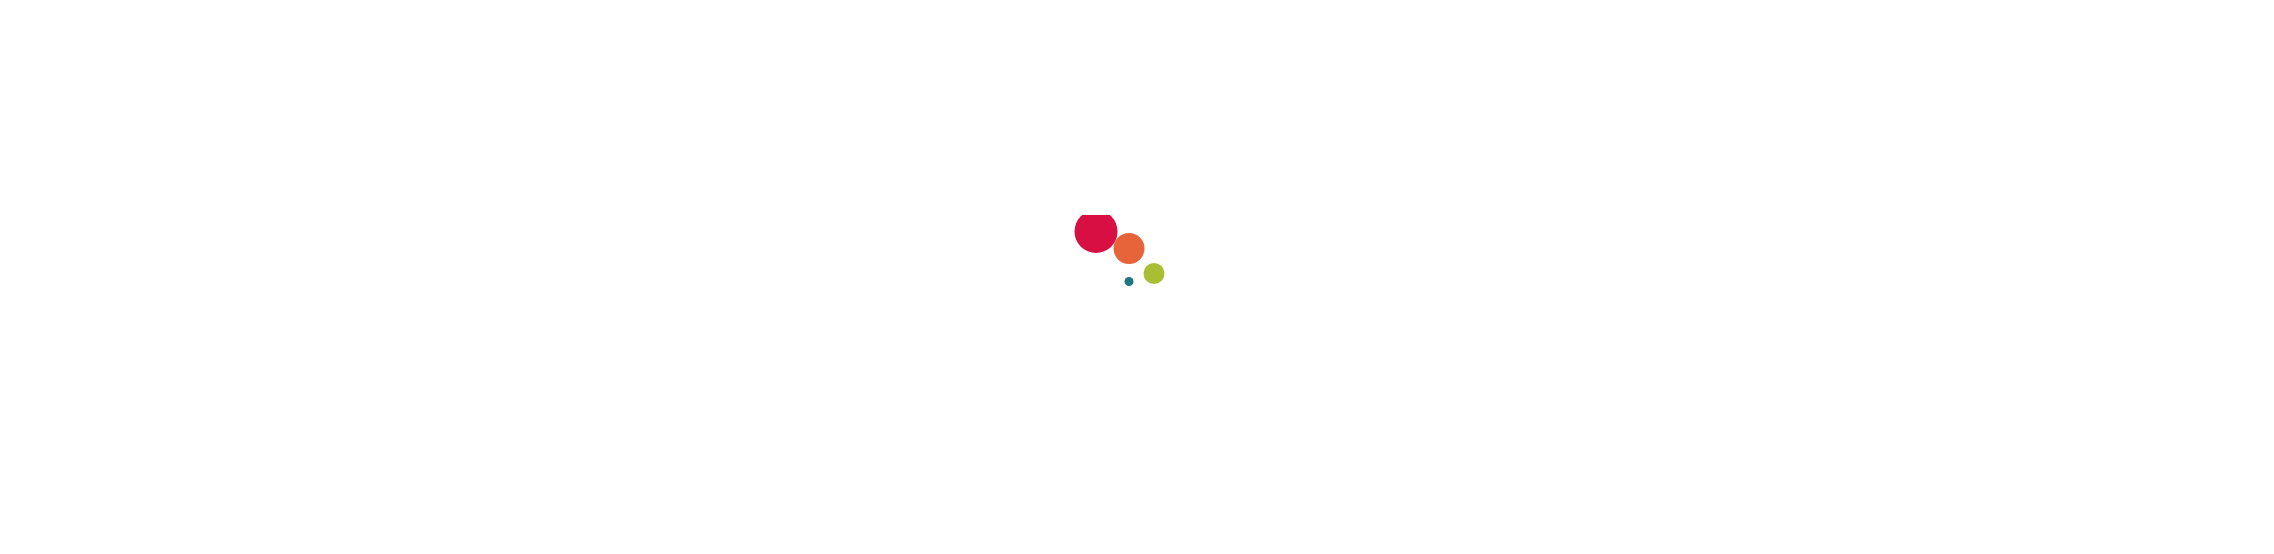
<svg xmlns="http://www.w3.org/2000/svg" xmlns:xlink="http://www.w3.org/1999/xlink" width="2274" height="554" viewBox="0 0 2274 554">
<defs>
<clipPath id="clip1"><rect x="1013" y="215" width="250" height="125"/></clipPath>
</defs>
<rect width="100%" height="100%" fill="#ffffff"/>
<g clip-path="url(#clip1)">
<circle fill="#d70f42" cx="1096" cy="231.5" r="21.5"/>
</g>
<circle fill="#e7643a" cx="1129" cy="248.5" r="15.5"/>
<circle fill="#a9be32" cx="1154" cy="273.5" r="10.5"/>
<circle fill="#207584" cx="1129" cy="281.5" r="4.5"/>
</svg>
